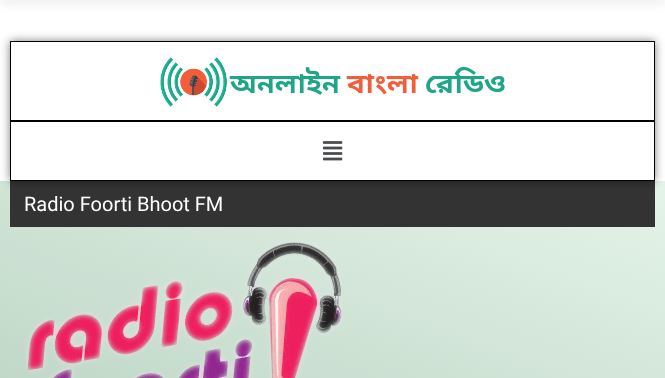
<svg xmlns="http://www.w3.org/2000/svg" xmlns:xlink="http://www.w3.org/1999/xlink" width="665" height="378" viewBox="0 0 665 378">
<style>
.cls-1{font:20px Roboto;fill:#ffffff}
</style>
<defs>
<linearGradient id="g1" gradientUnits="userSpaceOnUse" x1="468" y1="-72" x2="197" y2="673"><stop offset="0" stop-color="#f4fff8"/><stop offset="1" stop-color="#aecab6"/></linearGradient>
<clipPath id="clip1"><path d="M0 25H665V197H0ZM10 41H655V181H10Z" clip-rule="evenodd"/></clipPath>
</defs>
<rect width="100%" height="100%" fill="#ffffff"/>
<rect fill="url(#g1)" x="0" y="181" width="665" height="197"/>
<rect fill="#000000" fill-opacity="0.5" filter="blur(5px)" x="0" y="0" width="665" height="1"/>
<rect fill="#333333" x="10" y="181" width="645" height="46"/>
<g clip-path="url(#clip1)">
<rect fill="#000000" fill-opacity="0.5" filter="blur(5px)" x="10" y="41" width="645" height="140"/>
</g>
<rect fill="none" stroke="#000000" x="10.5" y="41.5" width="644" height="79"/>
<image xlink:href="image0.png" x="160" y="57" width="345" height="50"/>
<rect fill="none" stroke="#000000" x="10.5" y="121.5" width="644" height="59"/>
<image xlink:href="image1.png" x="323" y="141" width="20" height="20"/>
<image xlink:href="image2.png" x="25" y="240" width="318" height="138"/>
<text class="cls-1" x="24" y="211">Radio Foorti Bhoot FM</text>
</svg>
